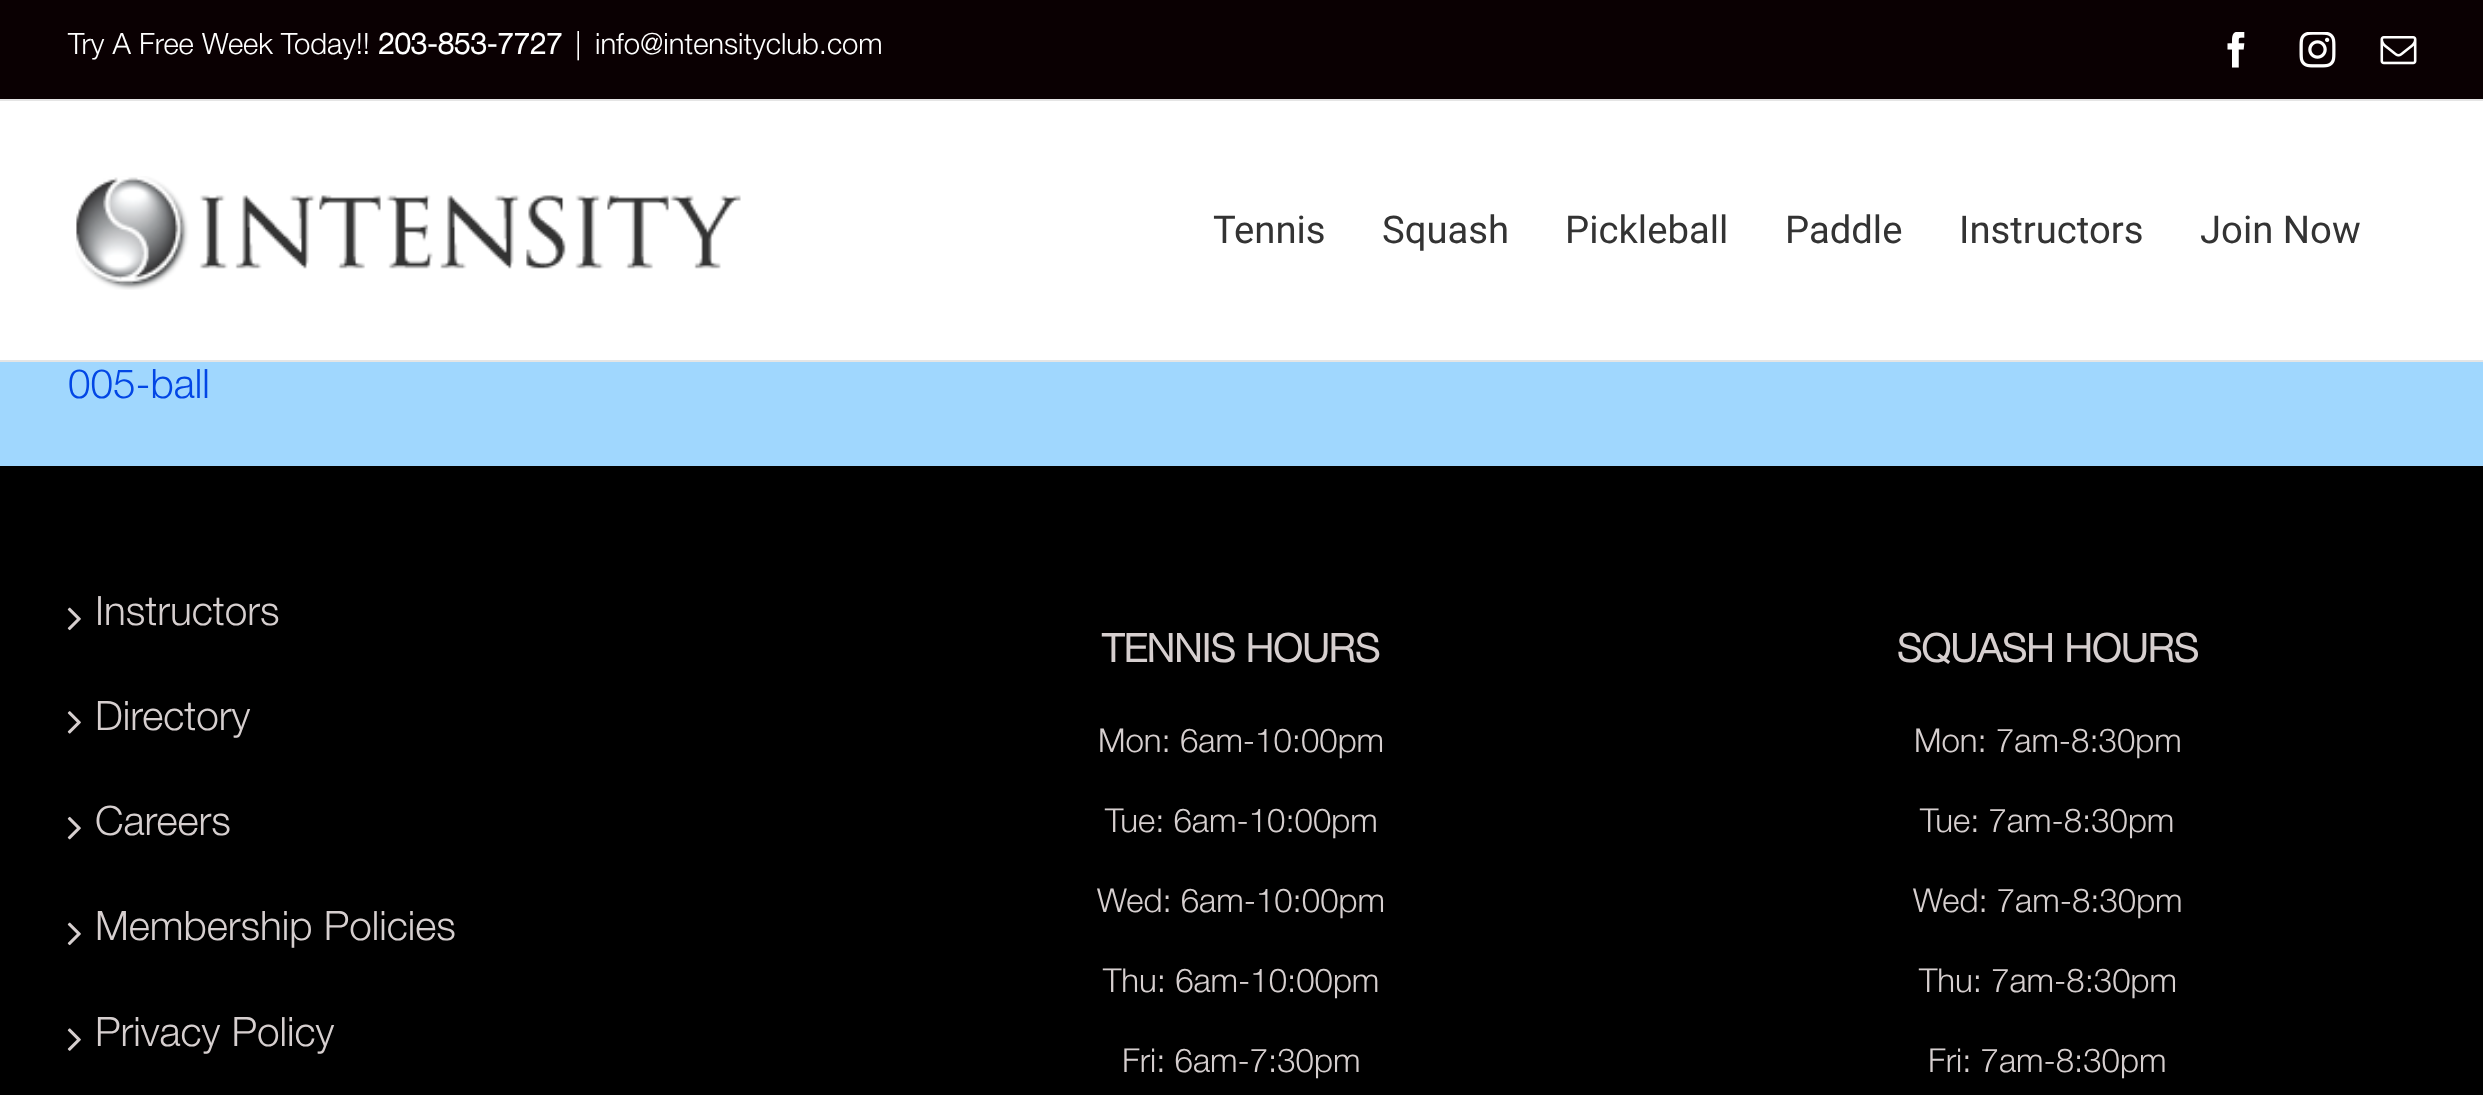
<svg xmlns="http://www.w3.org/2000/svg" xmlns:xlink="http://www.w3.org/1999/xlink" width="2483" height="1095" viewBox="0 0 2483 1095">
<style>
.cls-1{font:300 29.25px Helvetica Neue;fill:#ffffff}
.cls-2{font:bold 29.25px Helvetica Neue;fill:#ffffff}
.cls-3{font:38.25px Roboto;fill:#333333}
.cls-4{font:300 40.5px Helvetica Neue;fill:#0246e5}
.cls-5{font:300 40.5px Helvetica Neue;fill:#d6cfcf}
.cls-6{font:bold 39px Helvetica Neue;fill:#d6cfcf}
.cls-7{font:300 33px Helvetica Neue;fill:#d6cfcf}
</style>
<rect width="100%" height="100%" fill="#a0d7fe"/>
<rect fill="#0a0002" x="0" y="0" width="2483" height="99"/>
<rect fill="#e5e5e5" x="0" y="99" width="2483" height="2"/>
<image xlink:href="image0.png" x="2227" y="32" width="18" height="36"/>
<image xlink:href="image1.png" x="2299" y="32" width="37" height="36"/>
<image xlink:href="image2.png" x="2380" y="36" width="37" height="29"/>
<rect fill="#ffffff" x="0" y="101" width="2483" height="259"/>
<rect fill="#e5e5e5" x="0" y="360" width="2483" height="2"/>
<image xlink:href="image3.png" x="75" y="176" width="666" height="114"/>
<rect fill="#000000" x="0" y="466" width="2483" height="629"/>
<image xlink:href="image4.png" x="67" y="607" width="14" height="24"/>
<image xlink:href="image5.png" x="67" y="711" width="14" height="23"/>
<image xlink:href="image6.png" x="67" y="816" width="14" height="24"/>
<image xlink:href="image4.png" x="67" y="922" width="14" height="24"/>
<image xlink:href="image7.png" x="67" y="1028" width="14" height="23"/>
<text class="cls-1" x="68" y="54">Try A Free Week Today!!</text>
<text class="cls-2" x="378" y="54">203-853-7727</text>
<text class="cls-1" x="575" y="54">|</text>
<text class="cls-1" x="595" y="54">info@intensityclub.com</text>
<text class="cls-3" x="1213" y="243">Tennis</text>
<text class="cls-3" x="1382" y="243">Squash</text>
<text class="cls-3" x="1565" y="243">Pickleball</text>
<text class="cls-3" x="1785" y="243">Paddle</text>
<text class="cls-3" x="1959" y="243">Instructors</text>
<text class="cls-3" x="2200" y="243">Join Now</text>
<text class="cls-4" x="68" y="398">005-ball</text>
<text class="cls-5" x="95" y="625">Instructors</text>
<text class="cls-5" x="95" y="730">Directory</text>
<text class="cls-5" x="95" y="835">Careers</text>
<text class="cls-5" x="95" y="940">Membership Policies</text>
<text class="cls-5" x="95" y="1046">Privacy Policy</text>
<text class="cls-6" x="1102" y="662">TENNIS HOURS</text>
<text class="cls-7" x="1098" y="752">Mon: 6am-10:00pm</text>
<text class="cls-7" x="1105" y="832">Tue: 6am-10:00pm</text>
<text class="cls-7" x="1097" y="912">Wed: 6am-10:00pm</text>
<text class="cls-7" x="1103" y="992">Thu: 6am-10:00pm</text>
<text class="cls-7" x="1122" y="1072">Fri: 6am-7:30pm</text>
<text class="cls-6" x="1897" y="662">SQUASH HOURS</text>
<text class="cls-7" x="1914" y="752">Mon: 7am-8:30pm</text>
<text class="cls-7" x="1920" y="832">Tue: 7am-8:30pm</text>
<text class="cls-7" x="1913" y="912">Wed: 7am-8:30pm</text>
<text class="cls-7" x="1919" y="992">Thu: 7am-8:30pm</text>
<text class="cls-7" x="1928" y="1072">Fri: 7am-8:30pm</text>
</svg>
